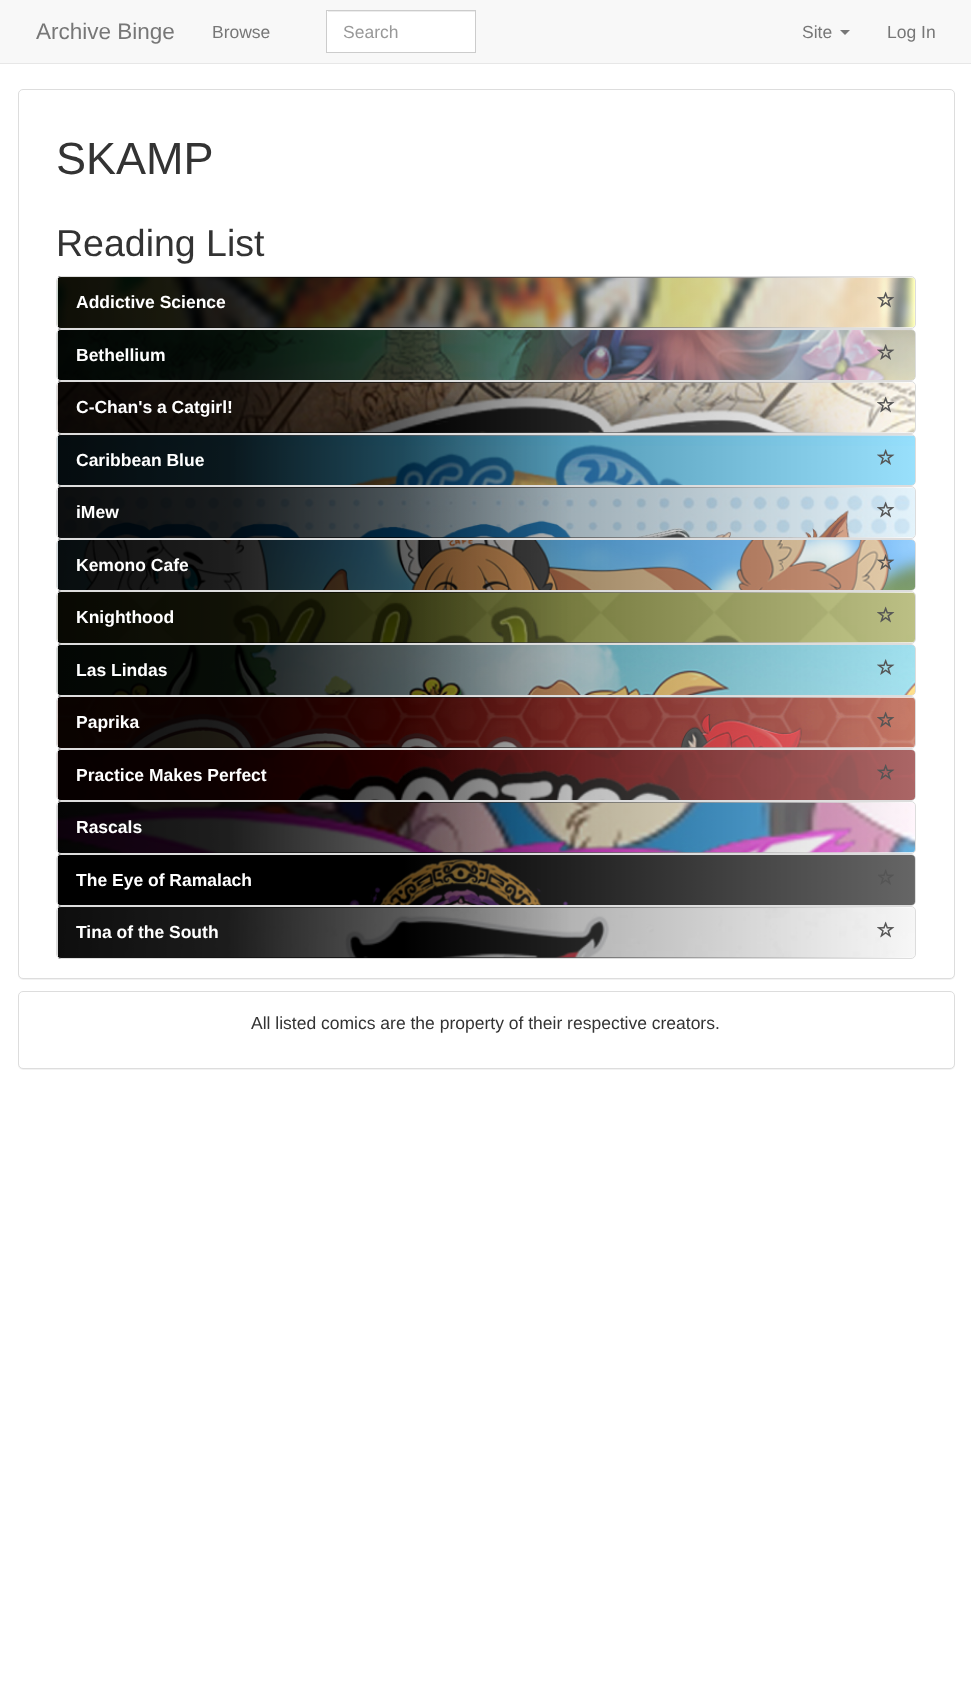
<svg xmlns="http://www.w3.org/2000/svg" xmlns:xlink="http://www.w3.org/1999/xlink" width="971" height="1687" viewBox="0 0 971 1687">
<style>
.cls-1{font:22.5px Liberation Sans;fill:#777777}
.cls-2{font:17.5px Liberation Sans;fill:#777777}
.cls-3{font:17.5px Liberation Sans;fill:#999999}
.cls-4{font:45px Liberation Sans;fill:#333333}
.cls-5{font:37.5px Liberation Sans;fill:#333333}
.cls-6{font:bold 17.5px Liberation Sans;fill:#ffffff}
.cls-7{font:17.5px Liberation Sans;fill:#333333}
</style>
<defs>
<clipPath id="clip1"><rect x="56" y="276" width="860" height="53" rx="5"/></clipPath>
<linearGradient id="g1" gradientUnits="userSpaceOnUse" x1="58" y1="303" x2="915" y2="302"><stop offset="0" stop-color="#000000"/><stop offset="0.4" stop-color="#000000"/><stop offset="1" stop-color="#ffffff"/></linearGradient>
<clipPath id="clip2"><rect x="56" y="329" width="860" height="52" rx="5"/></clipPath>
<linearGradient id="g2" gradientUnits="userSpaceOnUse" x1="58" y1="355" x2="915" y2="355"><stop offset="0" stop-color="#000000"/><stop offset="0.4" stop-color="#000000"/><stop offset="1" stop-color="#ffffff"/></linearGradient>
<clipPath id="clip3"><rect x="56" y="381" width="860" height="53" rx="5"/></clipPath>
<linearGradient id="g3" gradientUnits="userSpaceOnUse" x1="58" y1="408" x2="915" y2="408"><stop offset="0" stop-color="#000000"/><stop offset="0.4" stop-color="#000000"/><stop offset="1" stop-color="#ffffff"/></linearGradient>
<clipPath id="clip4"><rect x="56" y="434" width="860" height="52" rx="5"/></clipPath>
<linearGradient id="g4" gradientUnits="userSpaceOnUse" x1="58" y1="460" x2="915" y2="460"><stop offset="0" stop-color="#000000"/><stop offset="0.4" stop-color="#000000"/><stop offset="1" stop-color="#ffffff"/></linearGradient>
<clipPath id="clip5"><rect x="56" y="486" width="860" height="53" rx="5"/></clipPath>
<linearGradient id="g5" gradientUnits="userSpaceOnUse" x1="58" y1="513" x2="915" y2="513"><stop offset="0" stop-color="#000000"/><stop offset="0.4" stop-color="#000000"/><stop offset="1" stop-color="#ffffff"/></linearGradient>
<clipPath id="clip6"><rect x="56" y="539" width="860" height="52" rx="5"/></clipPath>
<linearGradient id="g6" gradientUnits="userSpaceOnUse" x1="58" y1="565" x2="915" y2="565"><stop offset="0" stop-color="#000000"/><stop offset="0.4" stop-color="#000000"/><stop offset="1" stop-color="#ffffff"/></linearGradient>
<clipPath id="clip7"><rect x="56" y="591" width="860" height="53" rx="5"/></clipPath>
<linearGradient id="g7" gradientUnits="userSpaceOnUse" x1="58" y1="618" x2="915" y2="618"><stop offset="0" stop-color="#000000"/><stop offset="0.4" stop-color="#000000"/><stop offset="1" stop-color="#ffffff"/></linearGradient>
<clipPath id="clip8"><rect x="56" y="644" width="860" height="52" rx="5"/></clipPath>
<linearGradient id="g8" gradientUnits="userSpaceOnUse" x1="58" y1="670" x2="915" y2="670"><stop offset="0" stop-color="#000000"/><stop offset="0.4" stop-color="#000000"/><stop offset="1" stop-color="#ffffff"/></linearGradient>
<clipPath id="clip9"><rect x="56" y="696" width="860" height="53" rx="5"/></clipPath>
<linearGradient id="g9" gradientUnits="userSpaceOnUse" x1="58" y1="723" x2="915" y2="723"><stop offset="0" stop-color="#000000"/><stop offset="0.4" stop-color="#000000"/><stop offset="1" stop-color="#ffffff"/></linearGradient>
<clipPath id="clip10"><rect x="56" y="749" width="860" height="52" rx="5"/></clipPath>
<linearGradient id="g10" gradientUnits="userSpaceOnUse" x1="58" y1="775" x2="915" y2="775"><stop offset="0" stop-color="#000000"/><stop offset="0.4" stop-color="#000000"/><stop offset="1" stop-color="#ffffff"/></linearGradient>
<clipPath id="clip11"><rect x="56" y="801" width="860" height="53" rx="5"/></clipPath>
<linearGradient id="g11" gradientUnits="userSpaceOnUse" x1="58" y1="828" x2="915" y2="828"><stop offset="0" stop-color="#000000"/><stop offset="0.4" stop-color="#000000"/><stop offset="1" stop-color="#ffffff"/></linearGradient>
<clipPath id="clip12"><rect x="56" y="854" width="860" height="52" rx="5"/></clipPath>
<linearGradient id="g12" gradientUnits="userSpaceOnUse" x1="58" y1="880" x2="915" y2="880"><stop offset="0" stop-color="#000000"/><stop offset="0.4" stop-color="#000000"/><stop offset="1" stop-color="#ffffff"/></linearGradient>
<clipPath id="clip13"><rect x="56" y="906" width="860" height="53" rx="5"/></clipPath>
<linearGradient id="g13" gradientUnits="userSpaceOnUse" x1="58" y1="933" x2="915" y2="933"><stop offset="0" stop-color="#000000"/><stop offset="0.4" stop-color="#000000"/><stop offset="1" stop-color="#ffffff"/></linearGradient>
</defs>
<rect width="100%" height="100%" fill="#ffffff"/>
<rect fill="#f8f8f8" x="0" y="0" width="971" height="63"/>
<rect fill="#e7e7e7" x="0" y="63" width="971" height="1"/>
<rect fill="#ffffff" x="327" y="11" width="148" height="41"/>
<rect fill="#ececec" x="328" y="11" width="147" height="1"/>
<rect fill="none" stroke="#cccccc" x="326.5" y="10.5" width="149" height="42"/>
<path fill="#777777" d="M840 30H850L845 35Z"/>
<rect fill="#000000" fill-opacity="0.05" filter="blur(0.5px)" x="18" y="90" width="937" height="890" rx="5"/>
<rect fill="#ffffff" stroke="#dddddd" x="18.5" y="89.5" width="936" height="889" rx="4.5"/>
<g clip-path="url(#clip1)">
<rect fill="url(#g1)" x="58" y="276" width="857" height="53"/>
</g>
<rect fill="none" stroke="#dddddd" x="56.5" y="276.5" width="859" height="52" rx="4.5"/>
<image xlink:href="image0.png" x="57" y="277" width="858" height="51"/>
<image xlink:href="image1.png" x="877" y="291" width="18" height="17"/>
<g clip-path="url(#clip2)">
<rect fill="url(#g2)" x="58" y="329" width="857" height="52"/>
</g>
<rect fill="none" stroke="#dddddd" x="56.5" y="329.5" width="859" height="51" rx="4.5"/>
<image xlink:href="image2.png" x="57" y="330" width="858" height="50"/>
<image xlink:href="image3.png" x="877" y="344" width="18" height="16"/>
<g clip-path="url(#clip3)">
<rect fill="url(#g3)" x="58" y="381" width="857" height="53"/>
</g>
<rect fill="none" stroke="#dddddd" x="56.5" y="381.5" width="859" height="52" rx="4.5"/>
<image xlink:href="image4.png" x="57" y="382" width="858" height="51"/>
<image xlink:href="image5.png" x="877" y="396" width="18" height="17"/>
<g clip-path="url(#clip4)">
<rect fill="url(#g4)" x="58" y="434" width="857" height="52"/>
</g>
<rect fill="none" stroke="#dddddd" x="56.5" y="434.5" width="859" height="51" rx="4.5"/>
<image xlink:href="image6.png" x="57" y="435" width="858" height="50"/>
<image xlink:href="image7.png" x="877" y="449" width="18" height="16"/>
<g clip-path="url(#clip5)">
<rect fill="url(#g5)" x="58" y="486" width="857" height="53"/>
</g>
<rect fill="none" stroke="#dddddd" x="56.5" y="486.5" width="859" height="52" rx="4.5"/>
<image xlink:href="image8.png" x="57" y="487" width="858" height="51"/>
<image xlink:href="image9.png" x="877" y="501" width="18" height="17"/>
<g clip-path="url(#clip6)">
<rect fill="url(#g6)" x="58" y="539" width="857" height="52"/>
</g>
<rect fill="none" stroke="#dddddd" x="56.5" y="539.5" width="859" height="51" rx="4.5"/>
<image xlink:href="image10.png" x="57" y="540" width="858" height="50"/>
<image xlink:href="image11.png" x="877" y="554" width="18" height="16"/>
<g clip-path="url(#clip7)">
<rect fill="url(#g7)" x="58" y="591" width="857" height="53"/>
</g>
<rect fill="none" stroke="#dddddd" x="56.5" y="591.5" width="859" height="52" rx="4.5"/>
<image xlink:href="image12.png" x="57" y="592" width="858" height="51"/>
<image xlink:href="image13.png" x="877" y="606" width="18" height="17"/>
<g clip-path="url(#clip8)">
<rect fill="url(#g8)" x="58" y="644" width="857" height="52"/>
</g>
<rect fill="none" stroke="#dddddd" x="56.5" y="644.5" width="859" height="51" rx="4.5"/>
<image xlink:href="image14.png" x="57" y="645" width="858" height="50"/>
<image xlink:href="image15.png" x="877" y="659" width="18" height="16"/>
<g clip-path="url(#clip9)">
<rect fill="url(#g9)" x="58" y="696" width="857" height="53"/>
</g>
<rect fill="none" stroke="#dddddd" x="56.5" y="696.5" width="859" height="52" rx="4.5"/>
<image xlink:href="image16.png" x="57" y="697" width="858" height="51"/>
<image xlink:href="image17.png" x="877" y="711" width="18" height="17"/>
<g clip-path="url(#clip10)">
<rect fill="url(#g10)" x="58" y="749" width="857" height="52"/>
</g>
<rect fill="none" stroke="#dddddd" x="56.5" y="749.5" width="859" height="51" rx="4.5"/>
<image xlink:href="image18.png" x="57" y="750" width="858" height="50"/>
<image xlink:href="image19.png" x="877" y="764" width="18" height="16"/>
<g clip-path="url(#clip11)">
<rect fill="url(#g11)" x="58" y="801" width="857" height="53"/>
</g>
<rect fill="none" stroke="#dddddd" x="56.5" y="801.5" width="859" height="52" rx="4.5"/>
<image xlink:href="image20.png" x="57" y="802" width="858" height="51"/>
<g clip-path="url(#clip12)">
<rect fill="url(#g12)" x="58" y="854" width="857" height="52"/>
</g>
<rect fill="none" stroke="#dddddd" x="56.5" y="854.5" width="859" height="51" rx="4.5"/>
<image xlink:href="image21.png" x="57" y="855" width="858" height="50"/>
<image xlink:href="image22.png" x="878" y="869" width="16" height="16"/>
<g clip-path="url(#clip13)">
<rect fill="url(#g13)" x="58" y="906" width="857" height="53"/>
</g>
<rect fill="none" stroke="#dddddd" x="56.5" y="906.5" width="859" height="52" rx="4.5"/>
<image xlink:href="image23.png" x="57" y="907" width="858" height="51"/>
<image xlink:href="image24.png" x="877" y="921" width="18" height="17"/>
<rect fill="#000000" fill-opacity="0.05" filter="blur(0.5px)" x="18" y="993" width="937" height="77" rx="5"/>
<rect fill="#ffffff" stroke="#dddddd" x="18.5" y="991.5" width="936" height="77" rx="4.5"/>
<text class="cls-1" x="36" y="39">Archive Binge</text>
<text class="cls-2" x="212" y="38">Browse</text>
<text class="cls-3" x="343" y="38">Search</text>
<text class="cls-2" x="802" y="38">Site</text>
<text class="cls-2" x="887" y="38">Log In</text>
<text class="cls-4" x="56" y="174">SKAMP</text>
<text class="cls-5" x="56" y="256">Reading List</text>
<text class="cls-6" x="76" y="308">Addictive Science</text>
<text class="cls-6" x="76" y="361">Bethellium</text>
<text class="cls-6" x="76" y="413">C-Chan's a Catgirl!</text>
<text class="cls-6" x="76" y="466">Caribbean Blue</text>
<text class="cls-6" x="76" y="518">iMew</text>
<text class="cls-6" x="76" y="571">Kemono Cafe</text>
<text class="cls-6" x="76" y="623">Knighthood</text>
<text class="cls-6" x="76" y="676">Las Lindas</text>
<text class="cls-6" x="76" y="728">Paprika</text>
<text class="cls-6" x="76" y="781">Practice Makes Perfect</text>
<text class="cls-6" x="76" y="833">Rascals</text>
<text class="cls-6" x="76" y="886">The Eye of Ramalach</text>
<text class="cls-6" x="76" y="938">Tina of the South</text>
<text class="cls-7" x="251" y="1029">All listed comics are the property of their respective creators.</text>
</svg>
